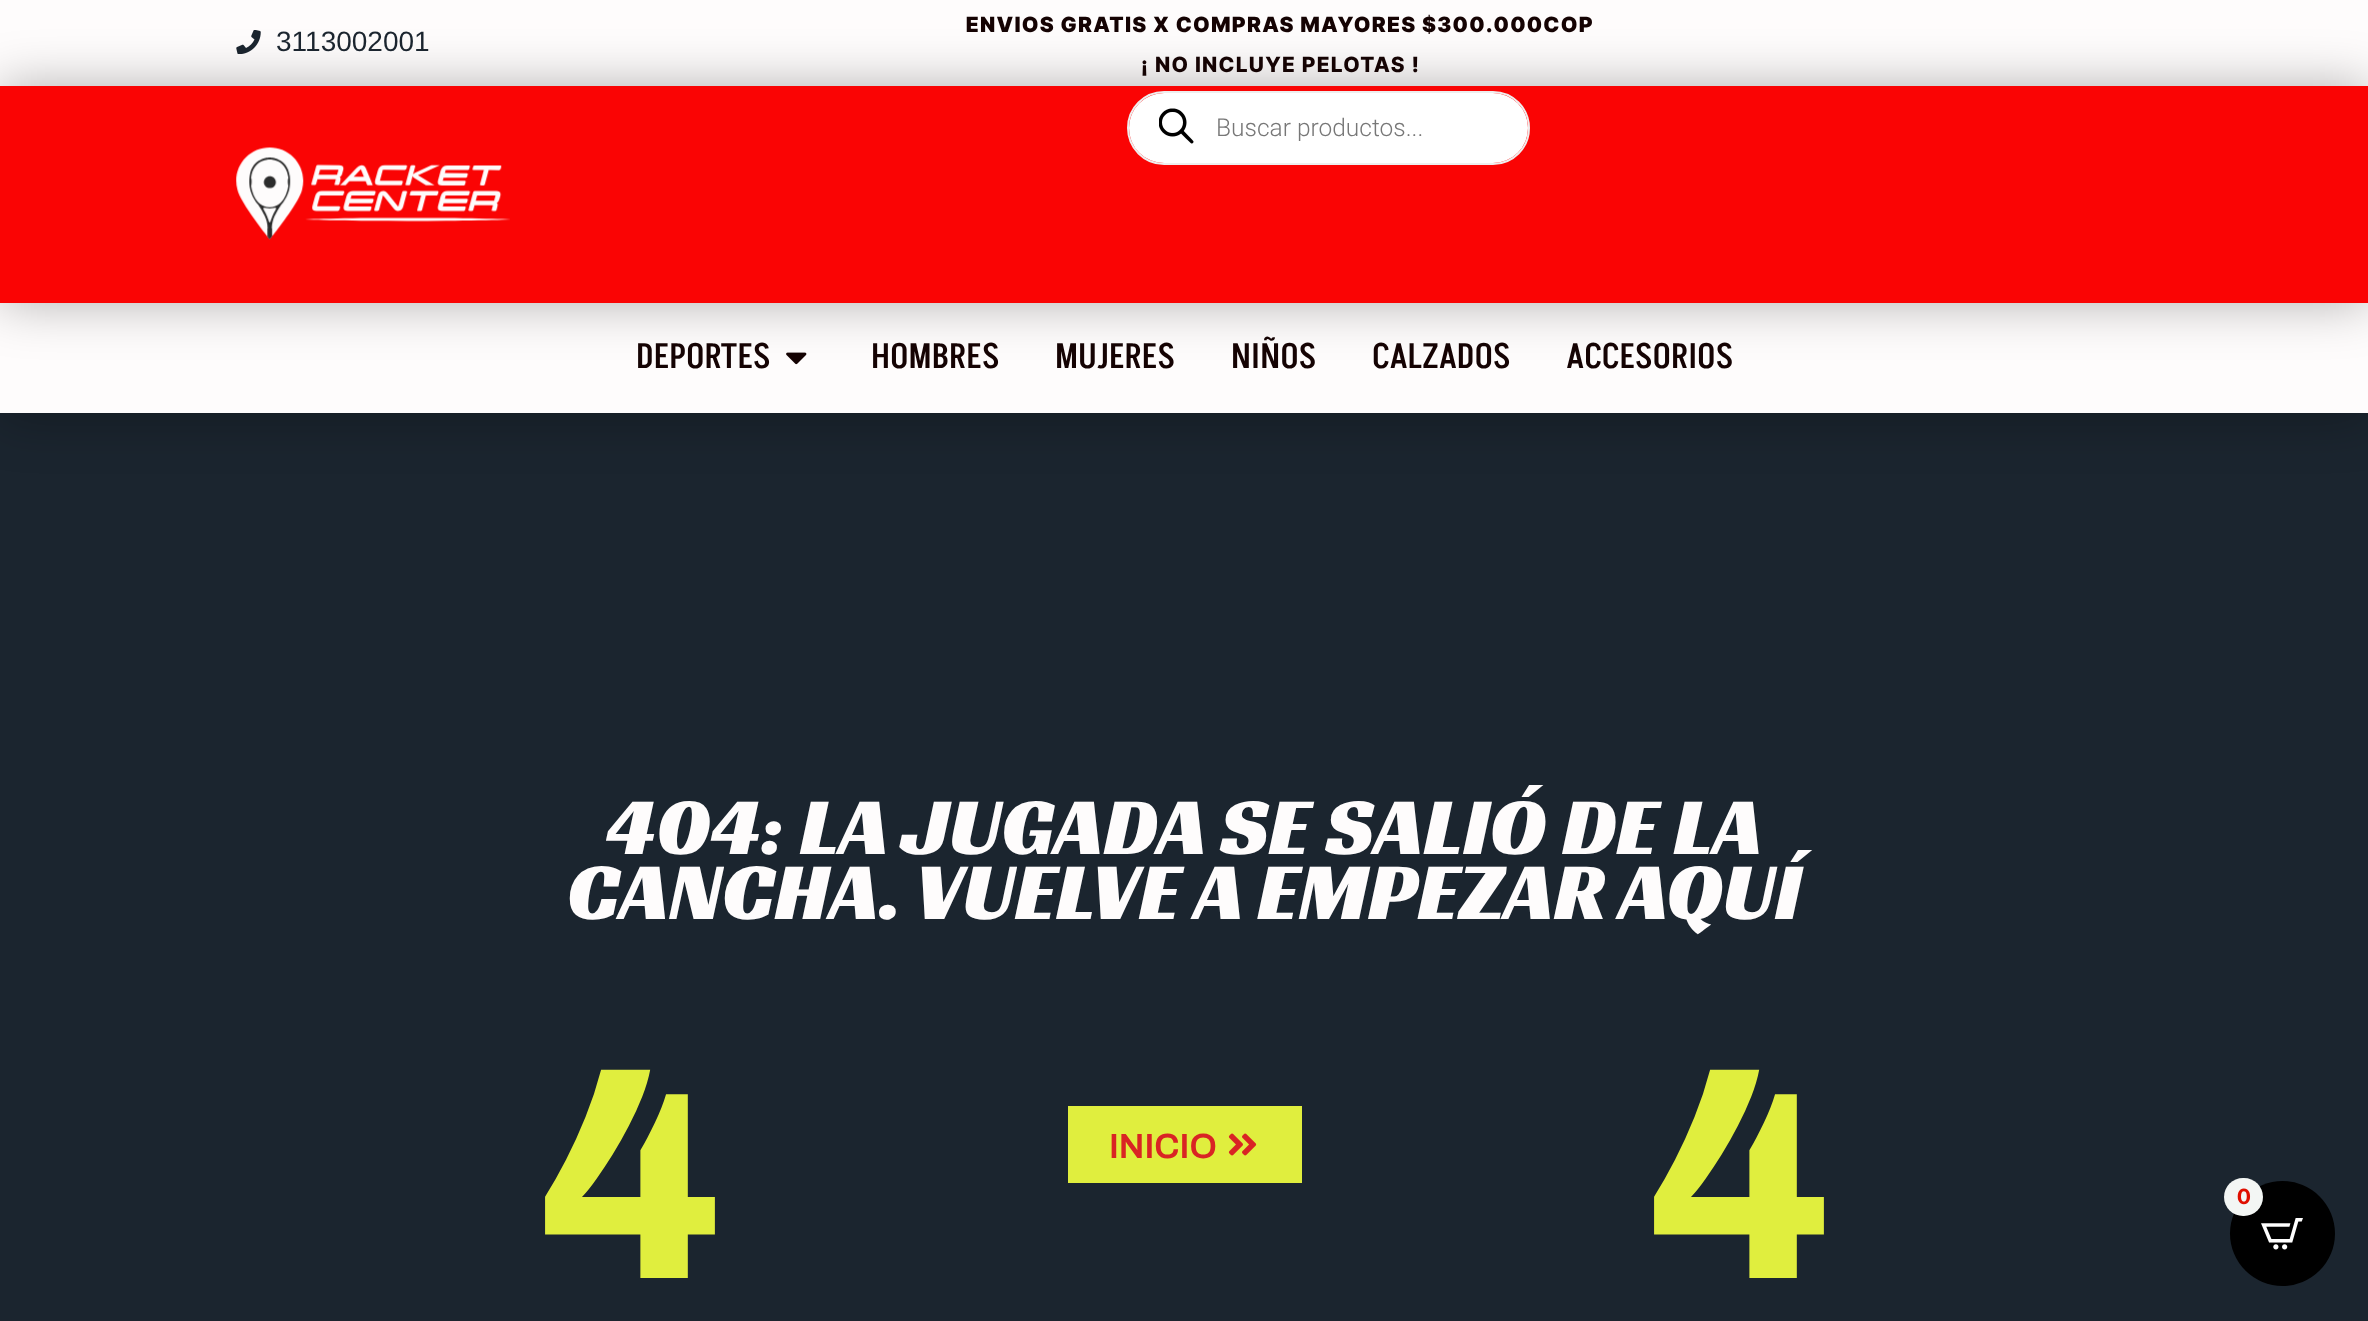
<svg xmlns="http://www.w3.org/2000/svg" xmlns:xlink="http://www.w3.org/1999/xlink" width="2368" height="1321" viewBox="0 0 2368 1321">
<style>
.cls-1{font:28px Liberation Sans;fill:#1b252f}
.cls-2{font:900 21px Inter Tight;letter-spacing:1.75px;fill:#150303}
.cls-3{font:800 21px Inter Tight;letter-spacing:1.75px;fill:#150303}
.cls-4{font:300 24.5px Roboto;fill:#777777}
.cls-5{font:500 35px Akshar;fill:#150303}
.cls-6{font:82.25px Racing Sans One;fill:#fefcfc}
.cls-7{font:800 298px Archivo;fill:#e0ee3e}
.cls-8{font:600 35px Archivo;fill:#d92424}
.cls-9{font:bold 21px Inter Tight;fill:#df0f00}
</style>
<rect width="100%" height="100%" fill="#1b252f"/>
<rect fill="#fefcfc" x="0" y="0" width="2368" height="86"/>
<image xlink:href="image0.png" x="236" y="30" width="25" height="24"/>
<rect fill="#000000" fill-opacity="0.3" filter="blur(26px)" x="0" y="306" width="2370" height="111"/>
<rect fill="#fefcfc" x="0" y="303" width="2368" height="110"/>
<image xlink:href="image3.png" x="786" y="352" width="21" height="13"/>
<rect fill="#000000" fill-opacity="0.3" filter="blur(26px)" x="0" y="86" width="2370" height="217"/>
<rect fill="#fa0404" x="0" y="86" width="2368" height="217"/>
<rect fill="none" stroke="#eeeeee" stroke-width="2" x="1128" y="92" width="401" height="72" rx="36"/>
<rect fill="#ffffff" x="1129" y="93" width="399" height="70" rx="35"/>
<image xlink:href="image1.png" x="1159" y="108" width="35" height="36"/>
<image xlink:href="image2.png" x="236" y="147" width="274" height="93"/>
<rect fill="#e0ee3e" x="1068" y="1106" width="234" height="77"/>
<image xlink:href="image4.png" x="1228" y="1133" width="29" height="23"/>
<circle fill="#000000" cx="2282.5" cy="1233.5" r="52.5"/>
<rect fill="#f3f6f4" x="2224" y="1178" width="39" height="38" rx="19"/>
<image xlink:href="image5.png" x="2261" y="1218" width="42" height="32"/>
<text class="cls-1" x="276" y="51">3113002001</text>
<text class="cls-2" x="966" y="32">ENVIOS GRATIS X COMPRAS MAYORES $300.000COP</text>
<text class="cls-3" x="1141" y="72">¡ NO INCLUYE PELOTAS !</text>
<text class="cls-4" x="1216" y="136">Buscar productos...</text>
<text class="cls-5" x="636" y="368">DEPORTES</text>
<text class="cls-5" x="871" y="368">HOMBRES</text>
<text class="cls-5" x="1055" y="368">MUJERES</text>
<text class="cls-5" x="1231" y="368">NIÑOS</text>
<text class="cls-5" x="1372" y="368">CALZADOS</text>
<text class="cls-5" x="1566" y="368">ACCESORIOS</text>
<text class="cls-6" x="606" y="854">404: LA JUGADA SE SALIÓ DE LA</text>
<text class="cls-6" x="567" y="919">CANCHA. VUELVE A EMPEZAR AQUÍ</text>
<text class="cls-7" x="537" y="1278">4</text>
<text class="cls-7" x="1646" y="1278">4</text>
<text class="cls-8" x="1109" y="1158">INICIO</text>
<text class="cls-9" x="2237" y="1204">0</text>
</svg>
